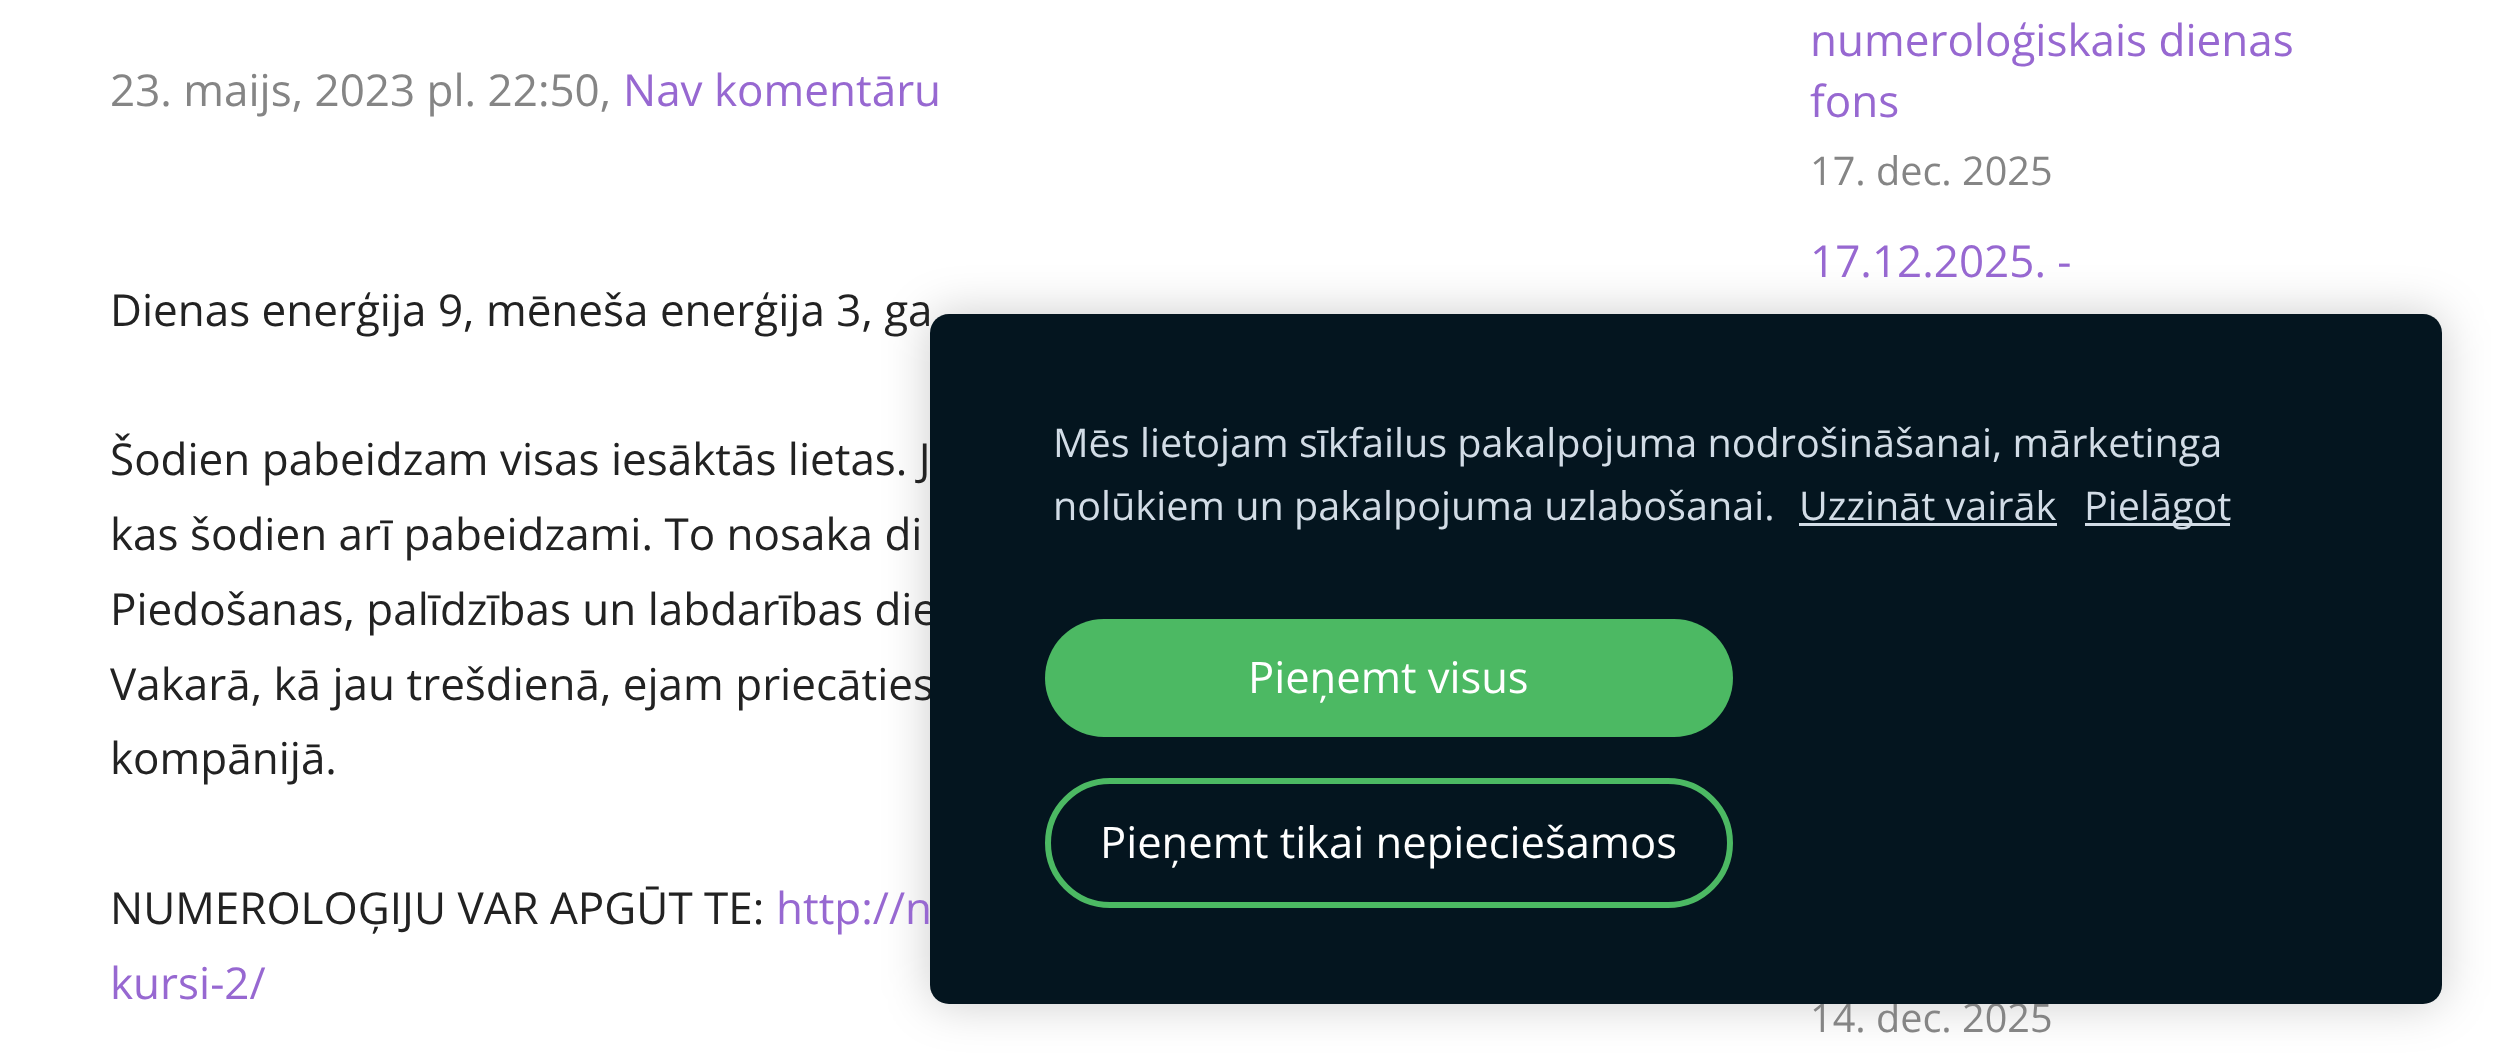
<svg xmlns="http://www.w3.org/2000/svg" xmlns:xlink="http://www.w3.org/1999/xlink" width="2495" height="1057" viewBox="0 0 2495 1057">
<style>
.cls-1{font:44px Open Sans;fill:#858585}
.cls-2{font:44px Open Sans;fill:#9768d1}
.cls-3{font:44px Open Sans;fill:#222222}
.cls-4{font:39.6px Open Sans;fill:#858585}
.cls-5{font:39.6px Open Sans;fill:#d2dce6}
.cls-6{font:43.5px Open Sans;fill:#ffffff}
</style>
<rect width="100%" height="100%" fill="#ffffff"/>
<rect fill="#000000" fill-opacity="0.2" filter="blur(23.5px)" x="930" y="314" width="1512" height="690" rx="19"/>
<text class="cls-1" x="110" y="106">23. maijs, 2023 pl. 22:50,</text>
<text class="cls-2" x="623" y="106">Nav komentāru</text>
<text class="cls-3" x="110" y="326">Dienas enerģija 9, mēneša enerģija 3, ga</text>
<text class="cls-3"><tspan x="110" y="475">Šodien pabeidzam visas iesāktās lietas. J</tspan><tspan x="110" y="550">kas šodien arī pabeidzami. To nosaka di</tspan><tspan x="110" y="625">Piedošanas, palīdzības un labdarības die</tspan><tspan x="110" y="700">Vakarā, kā jau trešdienā, ejam priecāties</tspan><tspan x="110" y="774">kompānijā.</tspan></text>
<text class="cls-3" x="110" y="924">NUMEROLOĢIJU VAR APGŪT TE:</text>
<text class="cls-2" x="776" y="924">http://n</text>
<text class="cls-2" x="110" y="999">kursi-2/</text>
<text class="cls-2"><tspan x="1810" y="56">numeroloģiskais dienas</tspan><tspan x="1810" y="117">fons</tspan></text>
<text class="cls-4" x="1810" y="185">17. dec. 2025</text>
<text class="cls-2" x="1810" y="277">17.12.2025. -</text>
<text class="cls-4" x="1810" y="1032">14. dec. 2025</text>
<rect fill="#04151f" x="930" y="314" width="1512" height="690" rx="19"/>
<text class="cls-5"><tspan x="1053" y="457">Mēs lietojam sīkfailus pakalpojuma nodrošināšanai, mārketinga</tspan><tspan x="1053" y="520">nolūkiem un pakalpojuma uzlabošanai.</tspan></text>
<text class="cls-5" x="1799" y="520">Uzzināt vairāk</text>
<rect fill="#d2dce6" x="1799" y="523" width="258" height="3"/>
<rect fill="#d2dce6" x="2085" y="523" width="145" height="3"/>
<text class="cls-5" x="2084" y="520">Pielāgot</text>
<rect fill="#4cb963" x="1045" y="619" width="688" height="118" rx="59"/>
<text class="cls-6" x="1248" y="693">Pieņemt visus</text>
<rect fill="none" stroke="#4cb963" stroke-width="6" x="1048" y="781" width="682" height="124" rx="62"/>
<text class="cls-6" x="1100" y="858">Pieņemt tikai nepieciešamos</text>
</svg>
